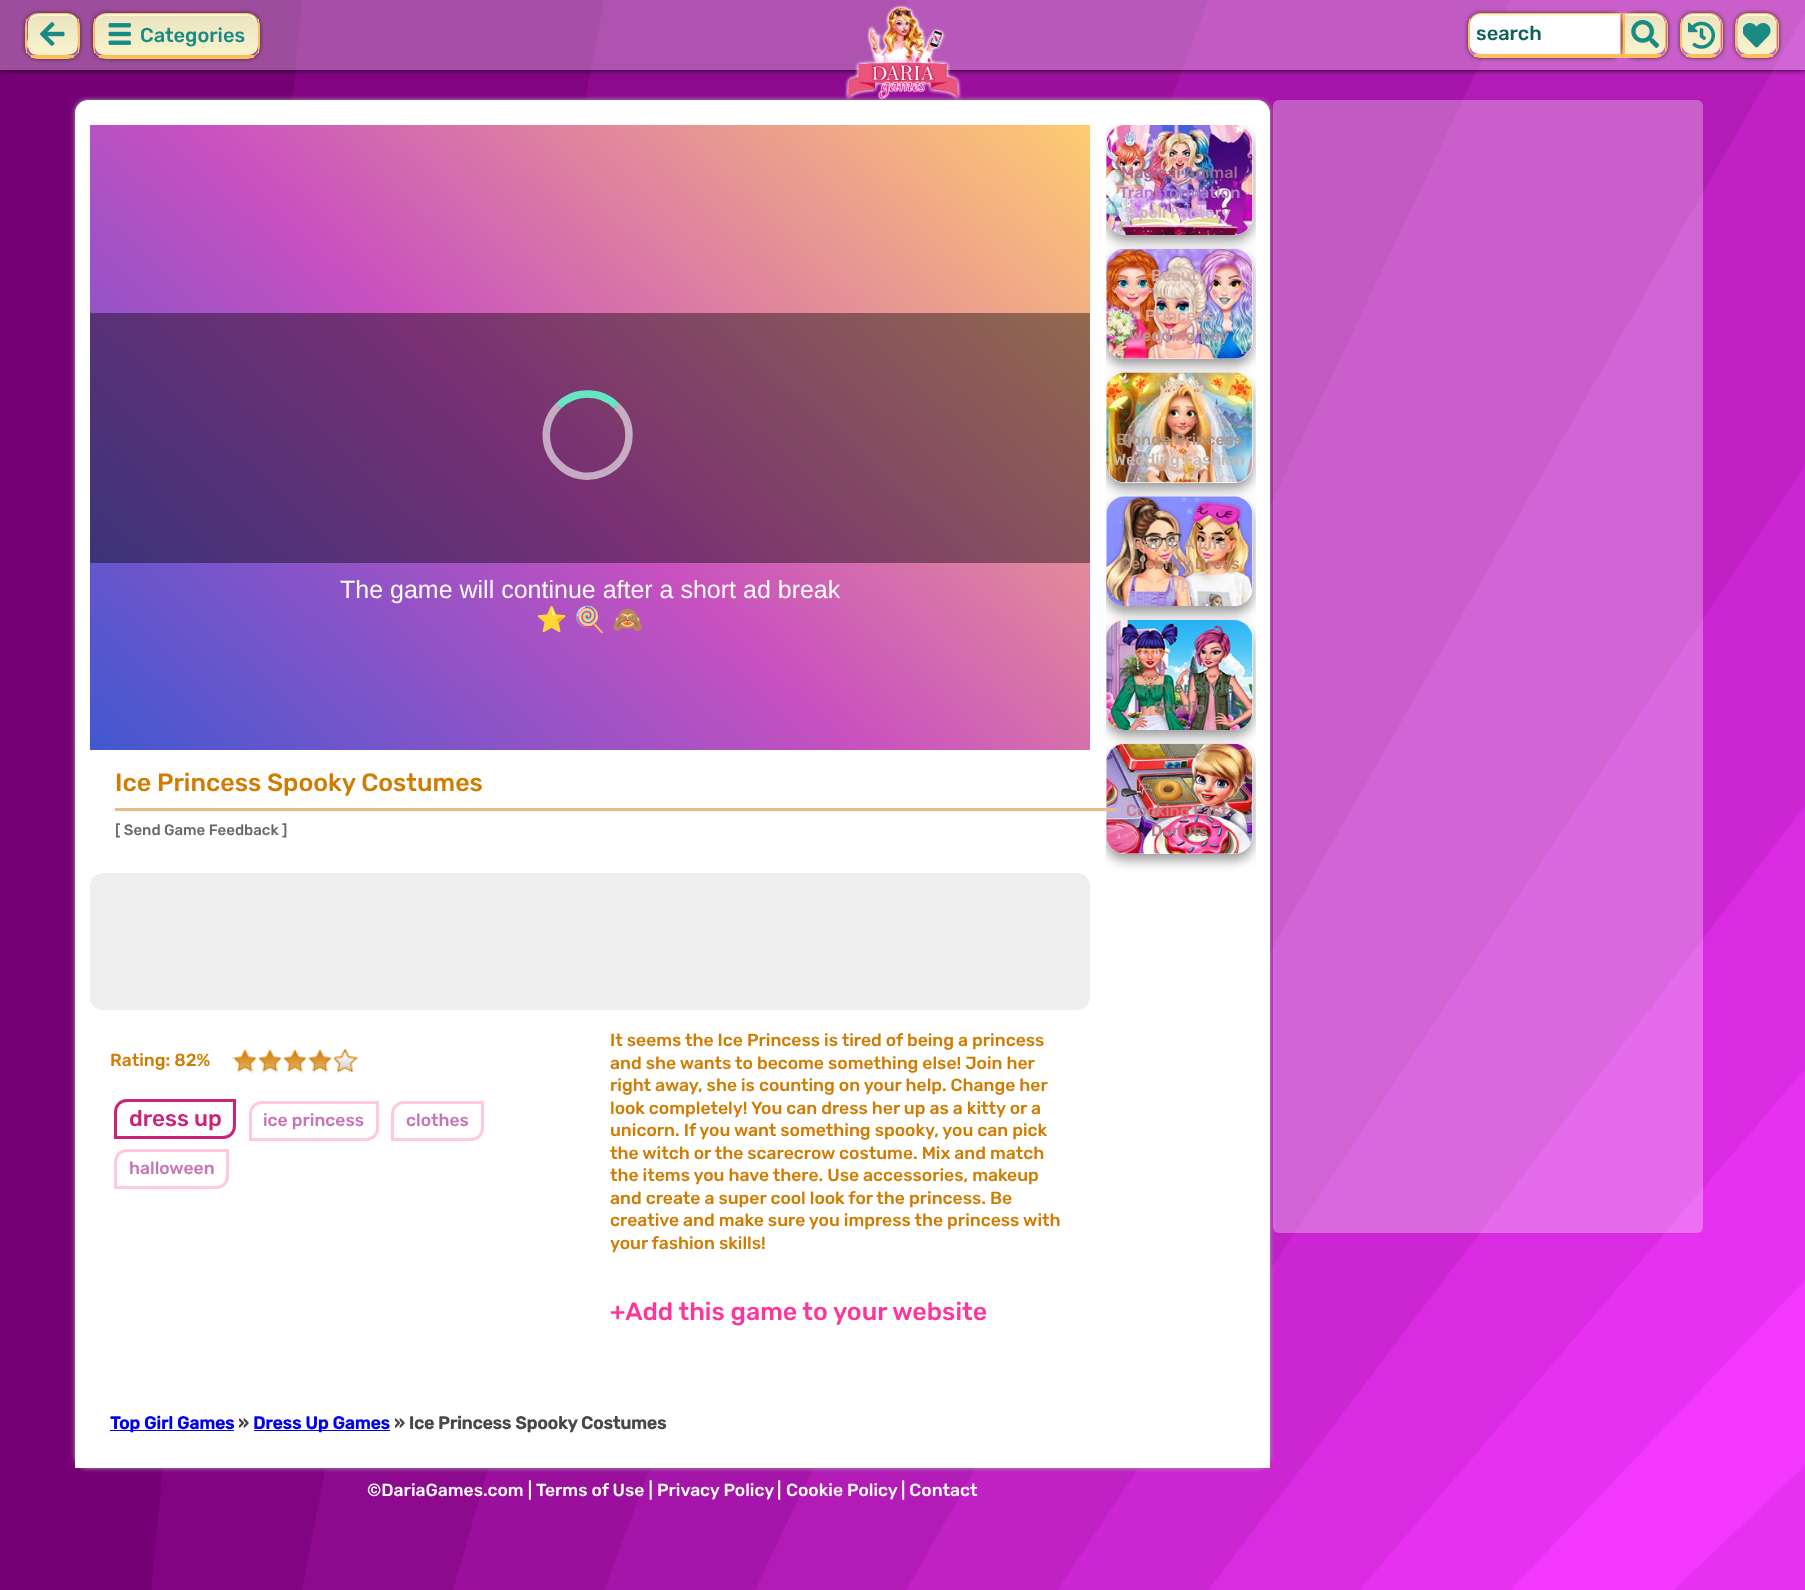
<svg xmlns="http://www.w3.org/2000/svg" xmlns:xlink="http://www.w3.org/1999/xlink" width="1805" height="1590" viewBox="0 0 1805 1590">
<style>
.cls-1{font:300 20px Rubik;fill:#1a8a85}
.cls-2{font:300 20px Rubik;fill:#115f5b}
.cls-3{font:25px Liberation Sans;fill:#ffffff}
.cls-4{font:25px Noto Color Emoji;fill:#ffffff}
.cls-5{font:300 16.25px Rubik;fill:#9e6e95}
.cls-6{font:300 16.25px Rubik;fill:#b17fc8}
.cls-7{font:300 16.25px Rubik;fill:#d2adce}
.cls-8{font:300 16.25px Rubik;fill:#d2aeaa}
.cls-9{font:300 16.25px Rubik;fill:#d4aba4}
.cls-10{font:300 16.25px Rubik;fill:#bc949d}
.cls-11{font:300 16.25px Rubik;fill:#af9584}
.cls-12{font:300 16.25px Rubik;fill:#c6b8af}
.cls-13{font:300 16.25px Rubik;fill:#c19f8e}
.cls-14{font:300 16.25px Rubik;fill:#b7886e}
.cls-15{font:300 16.25px Rubik;fill:#e0bcbc}
.cls-16{font:300 16.25px Rubik;fill:#567b64}
.cls-17{font:300 16.25px Rubik;fill:#867877}
.cls-18{font:300 16.25px Rubik;fill:#c57c8b}
.cls-19{font:300 16.25px Rubik;fill:#c07084}
.cls-20{font:300 25px Rubik;fill:#d17b00}
.cls-21{font:300 15px Rubik;fill:#696969}
.cls-22{font:300 17.5px Rubik;fill:#d17b00}
.cls-23{font:300 22.5px Rubik;fill:#cd2279}
.cls-24{font:300 17.5px Rubik;fill:#c873b8}
.cls-25{font:300 25px Rubik;fill:#fe359b}
.cls-26{font:bold 17.5px Rubik;fill:#0000ee}
.cls-27{font:bold 17.5px Rubik;fill:#484848}
.cls-28{font:300 17.5px Rubik;fill:#ffffff}
</style>
<defs>
<clipPath id="clip1"><rect x="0" y="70" width="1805" height="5"/></clipPath>
<clipPath id="clip2"><path d="M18 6H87V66H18ZM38 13H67C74 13 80 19 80 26V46C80 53 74 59 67 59H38C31 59 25 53 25 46V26C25 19 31 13 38 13Z" clip-rule="evenodd"/></clipPath>
<linearGradient id="g1" gradientUnits="userSpaceOnUse" x1="53" y1="14" x2="53" y2="55"><stop offset="0" stop-color="#e9e4bf"/><stop offset="1" stop-color="#f9f4cc"/></linearGradient>
<clipPath id="clip3"><path d="M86 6H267V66H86ZM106 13H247C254 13 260 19 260 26V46C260 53 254 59 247 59H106C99 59 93 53 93 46V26C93 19 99 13 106 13Z" clip-rule="evenodd"/></clipPath>
<linearGradient id="g2" gradientUnits="userSpaceOnUse" x1="176" y1="14" x2="176" y2="55"><stop offset="0" stop-color="#e9e4bf"/><stop offset="1" stop-color="#f9f4cc"/></linearGradient>
<clipPath id="clip4"><path d="M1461 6H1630V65H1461ZM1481 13H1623V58H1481C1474 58 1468 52 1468 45V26C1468 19 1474 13 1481 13Z" clip-rule="evenodd"/></clipPath>
<clipPath id="clip5"><path d="M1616 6H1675V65H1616ZM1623 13H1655C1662 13 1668 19 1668 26V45C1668 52 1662 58 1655 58H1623Z" clip-rule="evenodd"/></clipPath>
<linearGradient id="g3" gradientUnits="userSpaceOnUse" x1="1645" y1="14" x2="1645" y2="54"><stop offset="0" stop-color="#e9e4bf"/><stop offset="1" stop-color="#f9f4cc"/></linearGradient>
<clipPath id="clip6"><path d="M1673 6H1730V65H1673ZM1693 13H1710C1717 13 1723 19 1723 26V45C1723 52 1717 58 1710 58H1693C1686 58 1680 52 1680 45V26C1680 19 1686 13 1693 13Z" clip-rule="evenodd"/></clipPath>
<clipPath id="clip7"><path d="M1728 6H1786V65H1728ZM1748 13H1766C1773 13 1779 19 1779 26V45C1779 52 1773 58 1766 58H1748C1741 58 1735 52 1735 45V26C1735 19 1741 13 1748 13Z" clip-rule="evenodd"/></clipPath>
<clipPath id="clip8"><rect x="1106" y="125" width="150" height="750"/></clipPath>
<linearGradient id="g4" gradientUnits="userSpaceOnUse" x1="202" y1="854" x2="978" y2="21"><stop offset="0" stop-color="#4158d0"/><stop offset="0.46" stop-color="#c850c0"/><stop offset="1" stop-color="#ffcc70"/></linearGradient>
</defs>
<rect width="100%" height="100%" fill="#ffffff"/>
<image xlink:href="image0.png" x="0" y="0" width="1805" height="1590"/>
<g clip-path="url(#clip1)">
<rect fill="#000000" filter="blur(2.5px)" x="0" y="0" width="1805" height="70"/>
</g>
<rect fill="#ffffff" fill-opacity="0.3" x="0" y="0" width="1805" height="70"/>
<g clip-path="url(#clip2)">
<rect fill="#333333" filter="blur(2px)" x="25" y="13" width="55" height="46" rx="13"/>
</g>
<path fill="url(#g1)" d="M38 14H70C79 16 78 28 78 36C78 50 79 55 62 55H38C26 55 28 44 28 36C28 28 26 14 38 14Z"/>
<path fill="#fff7d2" d="M38 16H70C75 18 77 22 78 26C78 11 64 14 52 14C44 14 30 11 28 23V36C28 40 26 45 28 49V26L30 20C32 17 35 16 38 16Z"/>
<rect fill="none" stroke="#febc5c" x="25.5" y="13.5" width="54" height="45" rx="12.5"/>
<rect fill="#febc5c" x="78" y="19" width="1" height="34"/>
<rect fill="#febc5c" x="31" y="55" width="43" height="3"/>
<rect fill="#febc5c" x="26" y="19" width="1" height="34"/>
<image xlink:href="image1.png" x="40" y="22" width="25" height="24"/>
<g clip-path="url(#clip3)">
<rect fill="#333333" filter="blur(2px)" x="93" y="13" width="167" height="46" rx="13"/>
</g>
<path fill="url(#g2)" d="M105 14H248C253 14 258 19 258 25V46C258 51 253 55 248 55H105C99 55 95 51 95 46V25C95 19 99 14 105 14Z"/>
<path fill="#fff7d2" d="M105 16H248C252 16 256 19 257 24C257 18 253 14 248 14H105C99 14 95 19 95 25V28C95 21 99 16 105 16Z"/>
<rect fill="none" stroke="#febc5c" x="93.5" y="13.5" width="166" height="45" rx="12.5"/>
<rect fill="#febc5c" x="258" y="19" width="1" height="34"/>
<rect fill="#febc5c" x="99" y="55" width="155" height="3"/>
<rect fill="#febc5c" x="94" y="19" width="1" height="34"/>
<image xlink:href="image2.png" x="108" y="23" width="23" height="22"/>
<rect fill="#a4a4a4" filter="blur(2.5px)" x="75" y="100" width="1195" height="1368" rx="13"/>
<image xlink:href="image3.png" x="844" y="5" width="118" height="95"/>
<g clip-path="url(#clip4)">
<rect fill="#333333" filter="blur(2px)" x="1468" y="13" width="155" height="45" rx="13"/>
</g>
<path fill="#ffffff" d="M1480 14H1620V54H1480C1474 54 1470 50 1470 45V25C1470 19 1474 14 1480 14Z"/>
<path fill="#fff7d2" d="M1480 16H1620V14H1480C1474 14 1470 19 1470 25V28C1470 21 1474 16 1480 16Z"/>
<path fill="none" stroke="#febc5c" d="M1481 13.5H1622.5V57.5H1481C1474 57.5 1468.5 52 1468.5 45V26C1468.5 19 1474 13.5 1481 13.5Z"/>
<rect fill="#febc5c" x="1620" y="13" width="1" height="45"/>
<rect fill="#febc5c" x="1474" y="54" width="149" height="3"/>
<rect fill="#febc5c" x="1469" y="19" width="1" height="32"/>
<g clip-path="url(#clip5)">
<rect fill="#333333" filter="blur(2px)" x="1623" y="13" width="45" height="45" rx="13"/>
</g>
<path fill="url(#g3)" d="M1625 14H1655C1661 14 1665 19 1665 25V45C1665 50 1661 54 1655 54H1625Z"/>
<path fill="#fff7d2" d="M1625 16H1655C1661 16 1665 21 1665 28C1665 13 1658 14 1645 14H1625Z"/>
<path fill="none" stroke="#febc5c" d="M1623.5 13.5H1655C1662 13.5 1667.5 19 1667.5 26V45C1667.5 52 1662 57.5 1655 57.5H1623.5Z"/>
<rect fill="#febc5c" x="1665" y="19" width="1" height="32"/>
<rect fill="#febc5c" x="1623" y="54" width="38" height="3"/>
<rect fill="#febc5c" x="1624" y="13" width="1" height="45"/>
<image xlink:href="image4.png" x="1631" y="20" width="28" height="28"/>
<g clip-path="url(#clip6)">
<rect fill="#333333" filter="blur(2px)" x="1680" y="13" width="43" height="45" rx="13"/>
</g>
<path fill="#f9f4cc" d="M1692 14H1710C1716 14 1720 19 1720 25V45C1720 50 1716 54 1710 54H1692C1687 54 1682 50 1682 45V25C1682 19 1687 14 1692 14Z"/>
<image xlink:href="image5.png" x="1682" y="13" width="38" height="41"/>
<path fill="#fff7d2" d="M1692 16H1710C1716 16 1720 21 1720 28V25C1720 19 1715.5 14 1710 14H1692.5C1687 14 1683 18.5 1682.5 24C1684 19.5 1688 16 1692 16Z"/>
<rect fill="none" stroke="#febc5c" x="1680.5" y="13.5" width="42" height="44" rx="12.5"/>
<rect fill="#febc5c" x="1720" y="19" width="1" height="32"/>
<rect fill="#febc5c" x="1686" y="54" width="30" height="3"/>
<rect fill="#febc5c" x="1681" y="19" width="1" height="32"/>
<image xlink:href="image6.png" x="1688" y="21" width="27" height="28"/>
<g clip-path="url(#clip7)">
<rect fill="#333333" filter="blur(2px)" x="1735" y="13" width="44" height="45" rx="13"/>
</g>
<path fill="#f9f4cc" d="M1748 14H1766C1772 14 1776 19 1776 25V45C1776 50 1772 54 1766 54H1748C1742 54 1738 50 1738 45V25C1738 19 1742 14 1748 14Z"/>
<image xlink:href="image7.png" x="1737" y="13" width="39" height="41"/>
<path fill="#fff7d2" d="M1748 16H1766C1772 16 1776 21 1776 28V47V31.5C1776 25 1777 16 1768.5 14H1757H1745.5C1737 16 1737.5 25 1737.5 31.5V41.5C1737.5 43.5 1737.5 46 1738 47.5V28C1738 21 1742 16 1748 16Z"/>
<rect fill="none" stroke="#febc5c" x="1735.5" y="13.5" width="43" height="44" rx="12.5"/>
<rect fill="#febc5c" x="1776" y="19" width="1" height="32"/>
<rect fill="#febc5c" x="1741" y="54" width="32" height="3"/>
<rect fill="#febc5c" x="1736" y="19" width="1" height="32"/>
<image xlink:href="image8.png" x="1743" y="23" width="28" height="25"/>
<path fill="#ffffff" d="M88 100H1257C1264 100 1270 106 1270 113V1468H75V113C75 106 81 100 88 100Z"/>
<g clip-path="url(#clip8)">
<rect fill="#000000" fill-opacity="0.4" filter="blur(6px)" x="1106" y="131" width="147" height="110" rx="19"/>
<rect fill="#000000" fill-opacity="0.4" filter="blur(6px)" x="1106" y="255" width="147" height="110" rx="19"/>
<rect fill="#000000" fill-opacity="0.4" filter="blur(6px)" x="1106" y="379" width="147" height="110" rx="19"/>
<rect fill="#000000" fill-opacity="0.4" filter="blur(6px)" x="1106" y="503" width="147" height="110" rx="19"/>
<rect fill="#000000" fill-opacity="0.4" filter="blur(6px)" x="1106" y="626" width="147" height="110" rx="19"/>
</g>
<rect fill="#eeeeee" x="90" y="873" width="1000" height="137" rx="13"/>
<g clip-path="url(#clip8)">
<rect fill="#000000" fill-opacity="0.4" filter="blur(6px)" x="1106" y="750" width="147" height="110" rx="19"/>
</g>
<rect fill="url(#g4)" x="90" y="125" width="1000" height="625"/>
<rect fill="#000000" fill-opacity="0.4" x="90" y="313" width="1000" height="250"/>
<path fill="none" stroke="#66e5c3" stroke-width="7.5" d="M558.5 406C574 390 601 390 616.5 406"/>
<path fill="none" stroke="#f3f3f3" stroke-opacity="0.63" stroke-width="7.5" d="M616.5 406C624.5 413.5 629 424 629 435C629 471.5 584 490 558.5 464C552.5 458.5 548.5 451 547 443C544.5 429.5 548.5 415.5 558.5 406"/>
<rect fill="#ffffff" x="1106" y="125" width="147" height="110" rx="19"/>
<image xlink:href="image9.png" x="1106" y="125" width="147" height="110"/>
<rect fill="#ffffff" x="1106" y="249" width="147" height="110" rx="19"/>
<image xlink:href="image10.png" x="1106" y="248" width="147" height="111"/>
<rect fill="#ffffff" x="1106" y="373" width="147" height="110" rx="19"/>
<image xlink:href="image11.png" x="1106" y="372" width="147" height="111"/>
<rect fill="#ffffff" x="1106" y="496" width="147" height="110" rx="19"/>
<image xlink:href="image12.png" x="1106" y="496" width="147" height="111"/>
<rect fill="#ffffff" x="1106" y="620" width="147" height="110" rx="19"/>
<image xlink:href="image13.png" x="1106" y="620" width="147" height="110"/>
<rect fill="#ffffff" x="1106" y="744" width="147" height="110" rx="19"/>
<image xlink:href="image14.png" x="1106" y="743" width="147" height="111"/>
<rect fill="#ffffff" fill-opacity="0.3" x="1273" y="100" width="430" height="1133" rx="6"/>
<rect fill="#e8bd7f" x="115" y="808" width="1000" height="3"/>
<image xlink:href="image15.png" x="226" y="1048" width="138" height="25"/>
<rect fill="none" stroke="#ffffff" stroke-width="6" x="229" y="1046" width="132" height="30" rx="10"/>
<image xlink:href="image16.png" x="232" y="1049" width="103" height="24"/>
<path fill="none" stroke="#cd2279" stroke-width="3" d="M127 1100.5H234.5V1126C234.5 1132.5 229.5 1137.5 223 1137.5H115.5V1112C115.5 1105.5 120.5 1100.5 127 1100.5Z"/>
<path fill="none" stroke="#ffc8dc" stroke-width="3" d="M262 1102.5H377.5V1128C377.5 1134.5 372.5 1139.5 366 1139.5H250.5V1114C250.5 1107.5 255.5 1102.5 262 1102.5Z"/>
<path fill="none" stroke="#ffc8dc" stroke-width="3" d="M404 1102.5H482.5V1128C482.5 1134.5 477.5 1139.5 471 1139.5H392.5V1114C392.5 1107.5 397.5 1102.5 404 1102.5Z"/>
<path fill="none" stroke="#ffc8dc" stroke-width="3" d="M127 1150.5H227.5V1176C227.5 1182.5 222.5 1187.5 216 1187.5H115.5V1162C115.5 1155.5 120.5 1150.5 127 1150.5Z"/>
<rect fill="#0000ee" x="110" y="1430" width="124" height="1"/>
<rect fill="#0000ee" x="254" y="1430" width="136" height="1"/>
<text class="cls-1" x="140" y="42">Categories</text>
<text class="cls-2" x="1476" y="40">search</text>
<text class="cls-3" x="340" y="598">The game will continue after a short ad break</text>
<text class="cls-4" x="536" y="628">⭐</text>
<text class="cls-4" x="574" y="628">🍭</text>
<text class="cls-4" x="612" y="628">🙈</text>
<text class="cls-5" x="1121" y="178">Magical Animal</text>
<text class="cls-6" x="1119" y="198">Transformation</text>
<text class="cls-7" x="1128" y="218">Spell Factory</text>
<text class="cls-8" x="1151" y="281">Beauty</text>
<text class="cls-9" x="1145" y="321">Princess</text>
<text class="cls-10" x="1129" y="341">Wedding Day</text>
<text class="cls-11" x="1116" y="445">Blonde Princess</text>
<text class="cls-12" x="1113" y="465">Wedding Fashion</text>
<text class="cls-13" x="1132" y="549">Day In A Life</text>
<text class="cls-14" x="1120" y="569">Celebrity Dress</text>
<text class="cls-15" x="1169" y="589">Up</text>
<text class="cls-16" x="1124" y="693">Summer Style</text>
<text class="cls-17" x="1154" y="713">Studio</text>
<text class="cls-18" x="1126" y="816">Cooking Fast:</text>
<text class="cls-19" x="1151" y="836">Donuts</text>
<text class="cls-20" x="115" y="791">Ice Princess Spooky Costumes</text>
<text class="cls-21" x="115" y="835">[ Send Game Feedback ]</text>
<text class="cls-22" x="110" y="1066">Rating: 82%</text>
<text class="cls-23" x="129" y="1126">dress up</text>
<text class="cls-24" x="263" y="1126">ice princess</text>
<text class="cls-24" x="406" y="1126">clothes</text>
<text class="cls-24" x="129" y="1174">halloween</text>
<text class="cls-22"><tspan x="610" y="1046">It seems the Ice Princess is tired of being a princess</tspan><tspan x="610" y="1069">and she wants to become something else! Join her</tspan><tspan x="610" y="1091">right away, she is counting on your help. Change her</tspan><tspan x="610" y="1114">look completely! You can dress her up as a kitty or a</tspan><tspan x="610" y="1136">unicorn. If you want something spooky, you can pick</tspan><tspan x="610" y="1159">the witch or the scarecrow costume. Mix and match</tspan><tspan x="610" y="1181">the items you have there. Use accessories, makeup</tspan><tspan x="610" y="1204">and create a super cool look for the princess. Be</tspan><tspan x="610" y="1226">creative and make sure you impress the princess with</tspan><tspan x="610" y="1249">your fashion skills!</tspan></text>
<text class="cls-25" x="610" y="1320">+Add this game to your website</text>
<text class="cls-26" x="110" y="1429">Top Girl Games</text>
<text class="cls-27" x="238" y="1429">»</text>
<text class="cls-26" x="253" y="1429">Dress Up Games</text>
<text class="cls-27" x="394" y="1429">» Ice Princess Spooky Costumes</text>
<text class="cls-28" x="367" y="1496">©DariaGames.com |</text>
<text class="cls-28" x="536" y="1496">Terms of Use |</text>
<text class="cls-28" x="657" y="1496">Privacy Policy</text>
<text class="cls-28" x="777" y="1496">|</text>
<text class="cls-28" x="786" y="1496">Cookie Policy</text>
<text class="cls-28" x="901" y="1496">| Contact</text>
</svg>
